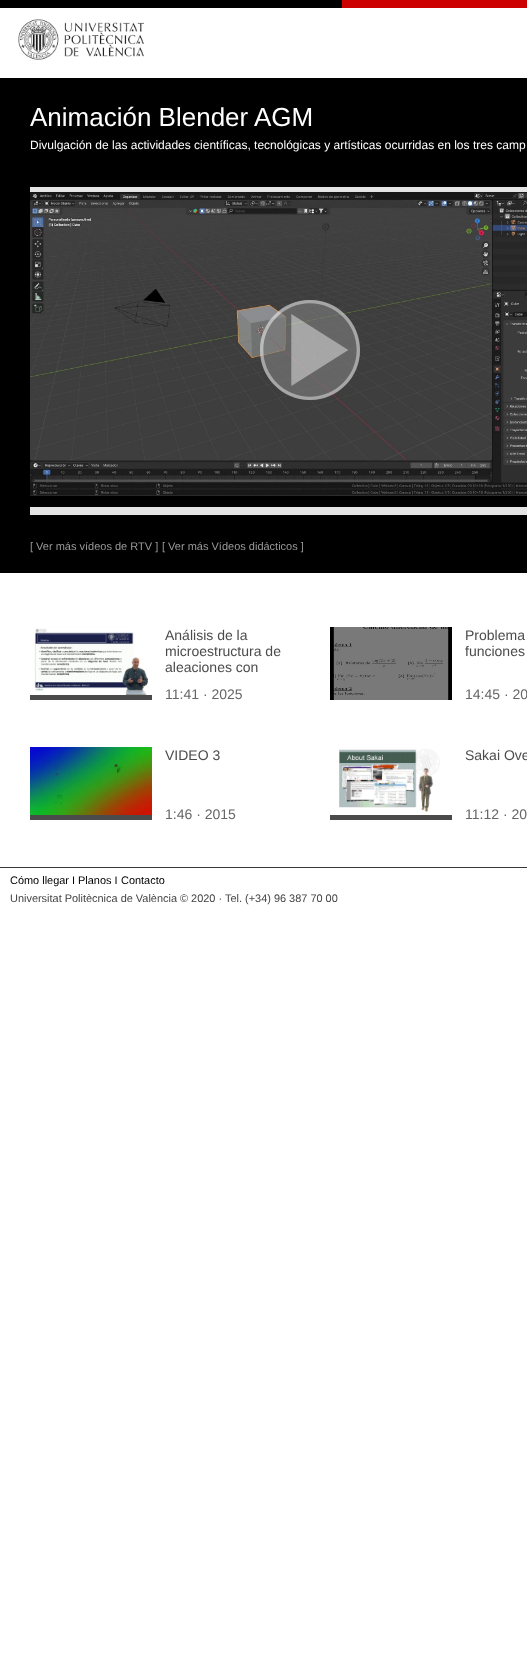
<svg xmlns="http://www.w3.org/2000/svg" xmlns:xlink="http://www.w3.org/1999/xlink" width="527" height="1658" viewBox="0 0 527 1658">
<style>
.cls-1{font:26px Liberation Sans;fill:#ffffff}
.cls-2{font:12px Liberation Sans;fill:#ffffff}
.cls-3{font:11px Liberation Sans;fill:#999999}
.cls-4{font:14px Liberation Sans;fill:#4b4b4b}
.cls-5{font:14px Liberation Sans;fill:#666666}
.cls-6{font:10.95px Liberation Sans;fill:#000000}
.cls-7{font:10.95px Liberation Sans;fill:#444444}
</style>
<rect width="100%" height="100%" fill="#ffffff"/>
<rect fill="#cc0000" x="342" y="0" width="185" height="8"/>
<rect fill="#000000" x="0" y="0" width="342" height="8"/>
<image xlink:href="image0.png" x="18" y="19" width="126" height="41"/>
<rect fill="#000000" x="0" y="78" width="527" height="495"/>
<image xlink:href="image1.png" x="30" y="187" width="497" height="328"/>
<rect fill="#4b4b4b" x="30" y="695" width="122" height="5"/>
<image xlink:href="image2.png" x="30" y="627" width="122" height="68"/>
<image xlink:href="image3.png" x="330" y="627" width="122" height="73"/>
<rect fill="#4b4b4b" x="30" y="815" width="122" height="5"/>
<image xlink:href="image4.png" x="30" y="747" width="122" height="68"/>
<rect fill="#4b4b4b" x="330" y="815" width="122" height="5"/>
<image xlink:href="image5.png" x="330" y="747" width="122" height="68"/>
<rect fill="#373737" x="0" y="867" width="527" height="1"/>
<text class="cls-1" x="30" y="126">Animación Blender AGM</text>
<text class="cls-2" x="30" y="149">Divulgación de las actividades científicas, tecnológicas y artísticas ocurridas en los tres camp</text>
<text class="cls-3" x="30" y="550">[ Ver más vídeos de RTV ]</text>
<text class="cls-3" x="162" y="550">[ Ver más Vídeos didácticos ]</text>
<text class="cls-4"><tspan x="165" y="640">Análisis de la</tspan><tspan x="165" y="656">microestructura de</tspan><tspan x="165" y="672">aleaciones con</tspan></text>
<text class="cls-5" x="165" y="699">11:41 · 2025</text>
<text class="cls-4"><tspan x="465" y="640">Problema</tspan><tspan x="465" y="656">funciones</tspan></text>
<text class="cls-5" x="465" y="699">14:45 · 20</text>
<text class="cls-4" x="165" y="760">VIDEO 3</text>
<text class="cls-5" x="165" y="819">1:46 · 2015</text>
<text class="cls-4" x="465" y="760">Sakai Ove</text>
<text class="cls-5" x="465" y="819">11:12 · 20</text>
<text class="cls-6" x="10" y="884">Cómo llegar I</text>
<text class="cls-6" x="78" y="884">Planos I</text>
<text class="cls-6" x="121" y="884">Contacto</text>
<text class="cls-7" x="10" y="902">Universitat Politècnica de València © 2020 · Tel. (+34) 96 387 70 00</text>
</svg>
